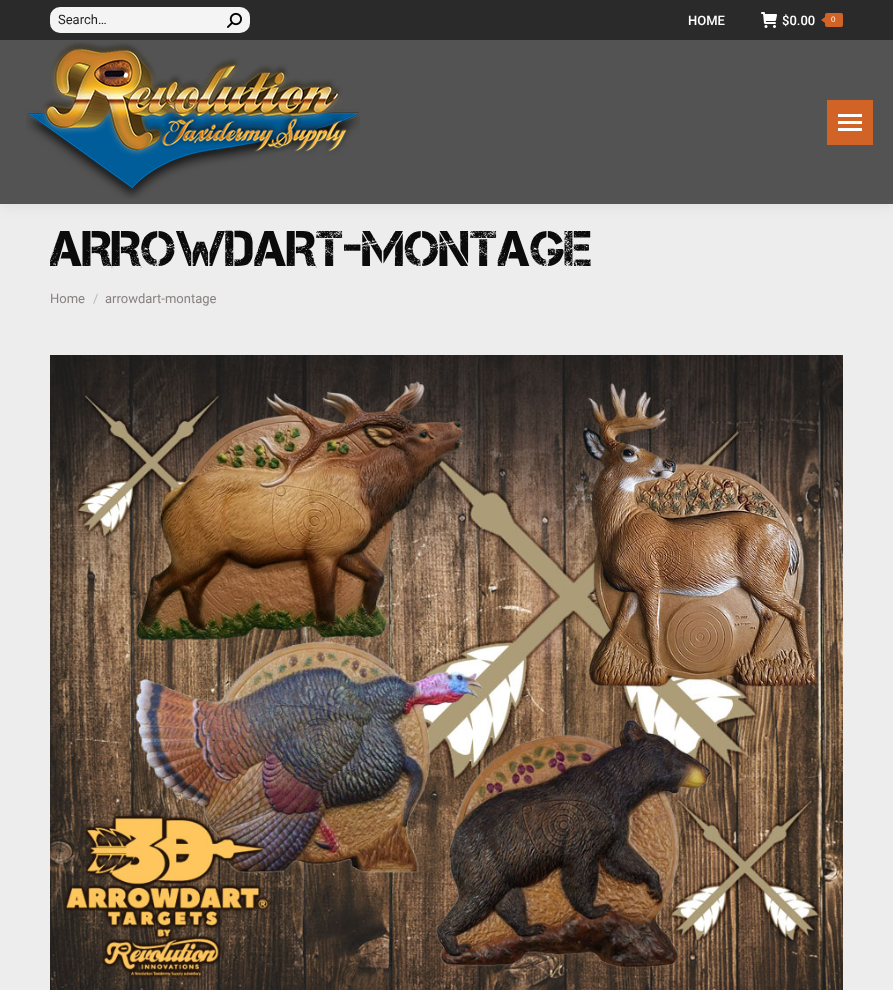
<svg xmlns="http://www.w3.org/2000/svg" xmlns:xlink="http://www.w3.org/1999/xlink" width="893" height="990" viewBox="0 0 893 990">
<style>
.cls-1{font:13px Roboto;fill:#1e1f22}
.cls-2{font:500 13px Roboto;fill:#ffffff}
.cls-3{font:8px Liberation Sans;fill:#ffffff}
.cls-4{font:50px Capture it;fill:#0b0b0b}
.cls-5{font:13px Roboto;fill:#878280}
.cls-6{font:13px Roboto;fill:#bab8b7}
</style>
<rect width="100%" height="100%" fill="#ededed"/>
<rect fill="#000000" fill-opacity="0.07" filter="blur(7.5px)" x="-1" y="-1" width="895" height="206"/>
<rect fill="#535353" x="0" y="40" width="893" height="164"/>
<rect fill="#2a2a2a" x="0" y="0" width="893" height="40"/>
<rect fill="#f4f4f4" x="50" y="7" width="200" height="26" rx="10"/>
<image xlink:href="image0.png" x="227" y="12" width="15" height="16"/>
<image xlink:href="image1.png" x="761" y="12" width="16" height="16"/>
<rect fill="#d26327" x="825" y="13" width="18" height="14" rx="2"/>
<path fill="#d26327" d="M825 17V23L821 20Z"/>
<image xlink:href="image2.png" x="26" y="42" width="334" height="157"/>
<rect fill="#d26327" x="827" y="100" width="46" height="45"/>
<rect fill="#ffffff" x="838" y="114" width="24" height="3"/>
<rect fill="#ffffff" x="838" y="121" width="24" height="3"/>
<rect fill="#ffffff" x="838" y="128" width="24" height="3"/>
<image xlink:href="image3.png" x="50" y="355" width="793" height="635"/>
<text class="cls-1" x="58" y="24">Search…</text>
<text class="cls-2" x="688" y="25">HOME</text>
<text class="cls-2" x="782" y="25">$0.00</text>
<text class="cls-3" x="831" y="22">0</text>
<text class="cls-4" x="50" y="266">ARROWDART-MONTAGE</text>
<text class="cls-5" x="50" y="303">Home</text>
<text class="cls-6" x="93" y="303">/</text>
<text class="cls-5" x="105" y="303">arrowdart-montage</text>
</svg>
